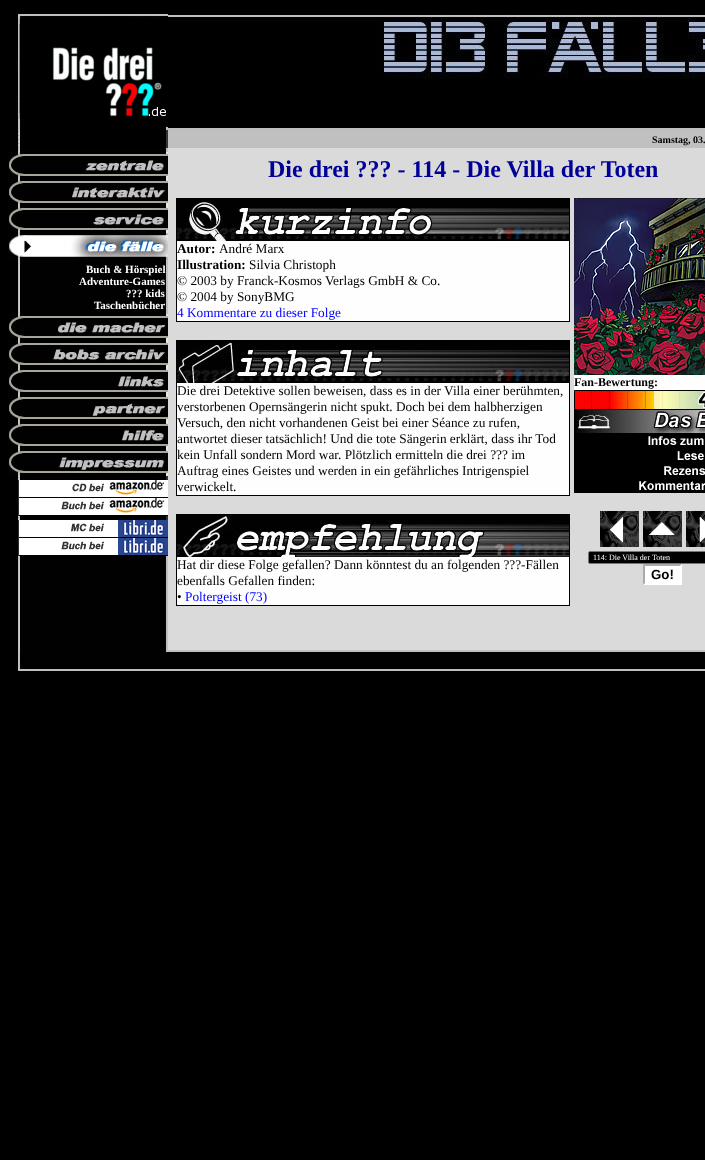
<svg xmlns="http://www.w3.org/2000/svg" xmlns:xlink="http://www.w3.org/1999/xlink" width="705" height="1160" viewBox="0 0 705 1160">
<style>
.cls-1{font:bold 10px Liberation Serif;fill:#000000}
.cls-2{font:bold 11px Liberation Serif;fill:#ffffff}
.cls-3{font:bold 24px Liberation Serif;fill:#000099}
.cls-4{font:bold 13.3px Liberation Serif;fill:#000000}
.cls-5{font:13.3px Liberation Serif;fill:#000000}
.cls-6{font:13.3px Liberation Serif;fill:#0000ff}
.cls-7{font:bold 12px Liberation Serif;fill:#000000}
.cls-8{font:8px Liberation Serif;fill:#ffffff}
.cls-9{font:bold 13.3px Liberation Sans;fill:#000000}
</style>
<rect width="100%" height="100%" fill="#000000"/>
<image xlink:href="image0.png" x="16" y="14" width="152" height="116"/>
<image xlink:href="image1.png" x="168" y="15" width="537" height="115"/>
<image xlink:href="image2.png" x="18" y="130" width="150" height="18"/>
<rect fill="#c0c0c0" x="168" y="130" width="537" height="18"/>
<image xlink:href="image3.png" x="18" y="148" width="150" height="484"/>
<image xlink:href="image4.png" x="18" y="149" width="6" height="3"/>
<image xlink:href="image5.png" x="8" y="152" width="160" height="27"/>
<image xlink:href="image6.png" x="8" y="179" width="160" height="27"/>
<image xlink:href="image7.png" x="8" y="206" width="160" height="27"/>
<image xlink:href="image8.png" x="8" y="233" width="160" height="27"/>
<image xlink:href="image9.png" x="8" y="314" width="160" height="27"/>
<image xlink:href="image10.png" x="8" y="341" width="160" height="27"/>
<image xlink:href="image11.png" x="8" y="368" width="160" height="27"/>
<image xlink:href="image12.png" x="8" y="395" width="160" height="27"/>
<image xlink:href="image13.png" x="8" y="422" width="160" height="27"/>
<image xlink:href="image14.png" x="8" y="449" width="160" height="27"/>
<image xlink:href="image15.png" x="18" y="476" width="150" height="4"/>
<image xlink:href="image16.png" x="18" y="480" width="150" height="18"/>
<image xlink:href="image17.png" x="18" y="498" width="150" height="18"/>
<image xlink:href="image15.png" x="18" y="516" width="150" height="4"/>
<image xlink:href="image18.png" x="18" y="520" width="150" height="18"/>
<image xlink:href="image19.png" x="18" y="538" width="150" height="18"/>
<rect fill="#dadada" x="168" y="148" width="537" height="502"/>
<rect fill="#000000" x="176" y="198" width="394" height="124"/>
<image xlink:href="image20.png" x="177" y="199" width="392" height="42"/>
<rect fill="#fefefe" x="177" y="241" width="392" height="80"/>
<rect fill="#000000" x="176" y="340" width="394" height="156"/>
<image xlink:href="image21.png" x="177" y="341" width="392" height="42"/>
<rect fill="#fefefe" x="177" y="383" width="392" height="112"/>
<rect fill="#000000" x="176" y="514" width="394" height="92"/>
<image xlink:href="image22.png" x="177" y="515" width="392" height="42"/>
<rect fill="#fefefe" x="177" y="557" width="392" height="48"/>
<image xlink:href="image23.png" x="574" y="198" width="131" height="177"/>
<rect fill="#fefefe" x="574" y="375" width="131" height="15"/>
<image xlink:href="image24.png" x="574" y="390" width="131" height="20"/>
<image xlink:href="image25.png" x="574" y="410" width="131" height="23"/>
<image xlink:href="image26.png" x="574" y="433" width="131" height="15"/>
<image xlink:href="image27.png" x="574" y="448" width="131" height="15"/>
<image xlink:href="image28.png" x="574" y="463" width="131" height="15"/>
<image xlink:href="image29.png" x="574" y="478" width="131" height="15"/>
<image xlink:href="image30.png" x="600" y="511" width="39" height="36"/>
<image xlink:href="image31.png" x="643" y="511" width="39" height="36"/>
<image xlink:href="image32.png" x="686" y="511" width="19" height="36"/>
<rect fill="#000000" stroke="#767676" x="588.5" y="551.5" width="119" height="12" rx="1.5"/>
<rect fill="#ffffff" x="643" y="564" width="39" height="21"/>
<path fill="#aaaaaa" d="M643 564H682L680 566H645Z"/>
<path fill="#ffffff" d="M682 564V585L680 583V566Z"/>
<path fill="#aaaaaa" d="M643 585V564L645 566V583Z"/>
<image xlink:href="image33.png" x="18" y="632" width="150" height="18"/>
<image xlink:href="image34.png" x="16" y="650" width="152" height="21"/>
<image xlink:href="image35.png" x="168" y="650" width="537" height="21"/>
<text class="cls-1" x="652" y="143">Samstag, 03.</text>
<text class="cls-2" x="86" y="273">Buch &amp; Hörspiel</text>
<text class="cls-2" x="79" y="285">Adventure-Games</text>
<text class="cls-2" x="126" y="297">??? kids</text>
<text class="cls-2" x="94" y="309">Taschenbücher</text>
<text class="cls-3" x="268" y="177">Die drei ??? - 114 - Die Villa der Toten</text>
<text class="cls-4" x="177" y="253">Autor:</text>
<text class="cls-5" x="219" y="253">André Marx</text>
<text class="cls-4" x="177" y="269">Illustration:</text>
<text class="cls-5" x="249" y="269">Silvia Christoph</text>
<text class="cls-5"><tspan x="177" y="285">© 2003 by Franck-Kosmos Verlags GmbH &amp; Co.</tspan><tspan x="177" y="301">© 2004 by SonyBMG</tspan></text>
<text class="cls-6" x="177" y="317">4 Kommentare zu dieser Folge</text>
<text class="cls-5"><tspan x="177" y="395">Die drei Detektive sollen beweisen, dass es in der Villa einer berühmten,</tspan><tspan x="177" y="411">verstorbenen Opernsängerin nicht spukt. Doch bei dem halbherzigen</tspan><tspan x="177" y="427">Versuch, den nicht vorhandenen Geist bei einer Séance zu rufen,</tspan><tspan x="177" y="443">antwortet dieser tatsächlich! Und die tote Sängerin erklärt, dass ihr Tod</tspan><tspan x="177" y="459">kein Unfall sondern Mord war. Plötzlich ermitteln die drei ??? im</tspan><tspan x="177" y="475">Auftrag eines Geistes und werden in ein gefährliches Intrigenspiel</tspan><tspan x="177" y="491">verwickelt.</tspan></text>
<text class="cls-5"><tspan x="177" y="569">Hat dir diese Folge gefallen? Dann könntest du an folgenden ???-Fällen</tspan><tspan x="177" y="585">ebenfalls Gefallen finden:</tspan><tspan x="177" y="601">•</tspan></text>
<text class="cls-6" x="185" y="601">Poltergeist (73)</text>
<text class="cls-7" x="574" y="386">Fan-Bewertung:</text>
<text class="cls-8" x="593" y="560">114: Die Villa der Toten</text>
<text class="cls-9" x="651" y="579">Go!</text>
</svg>
